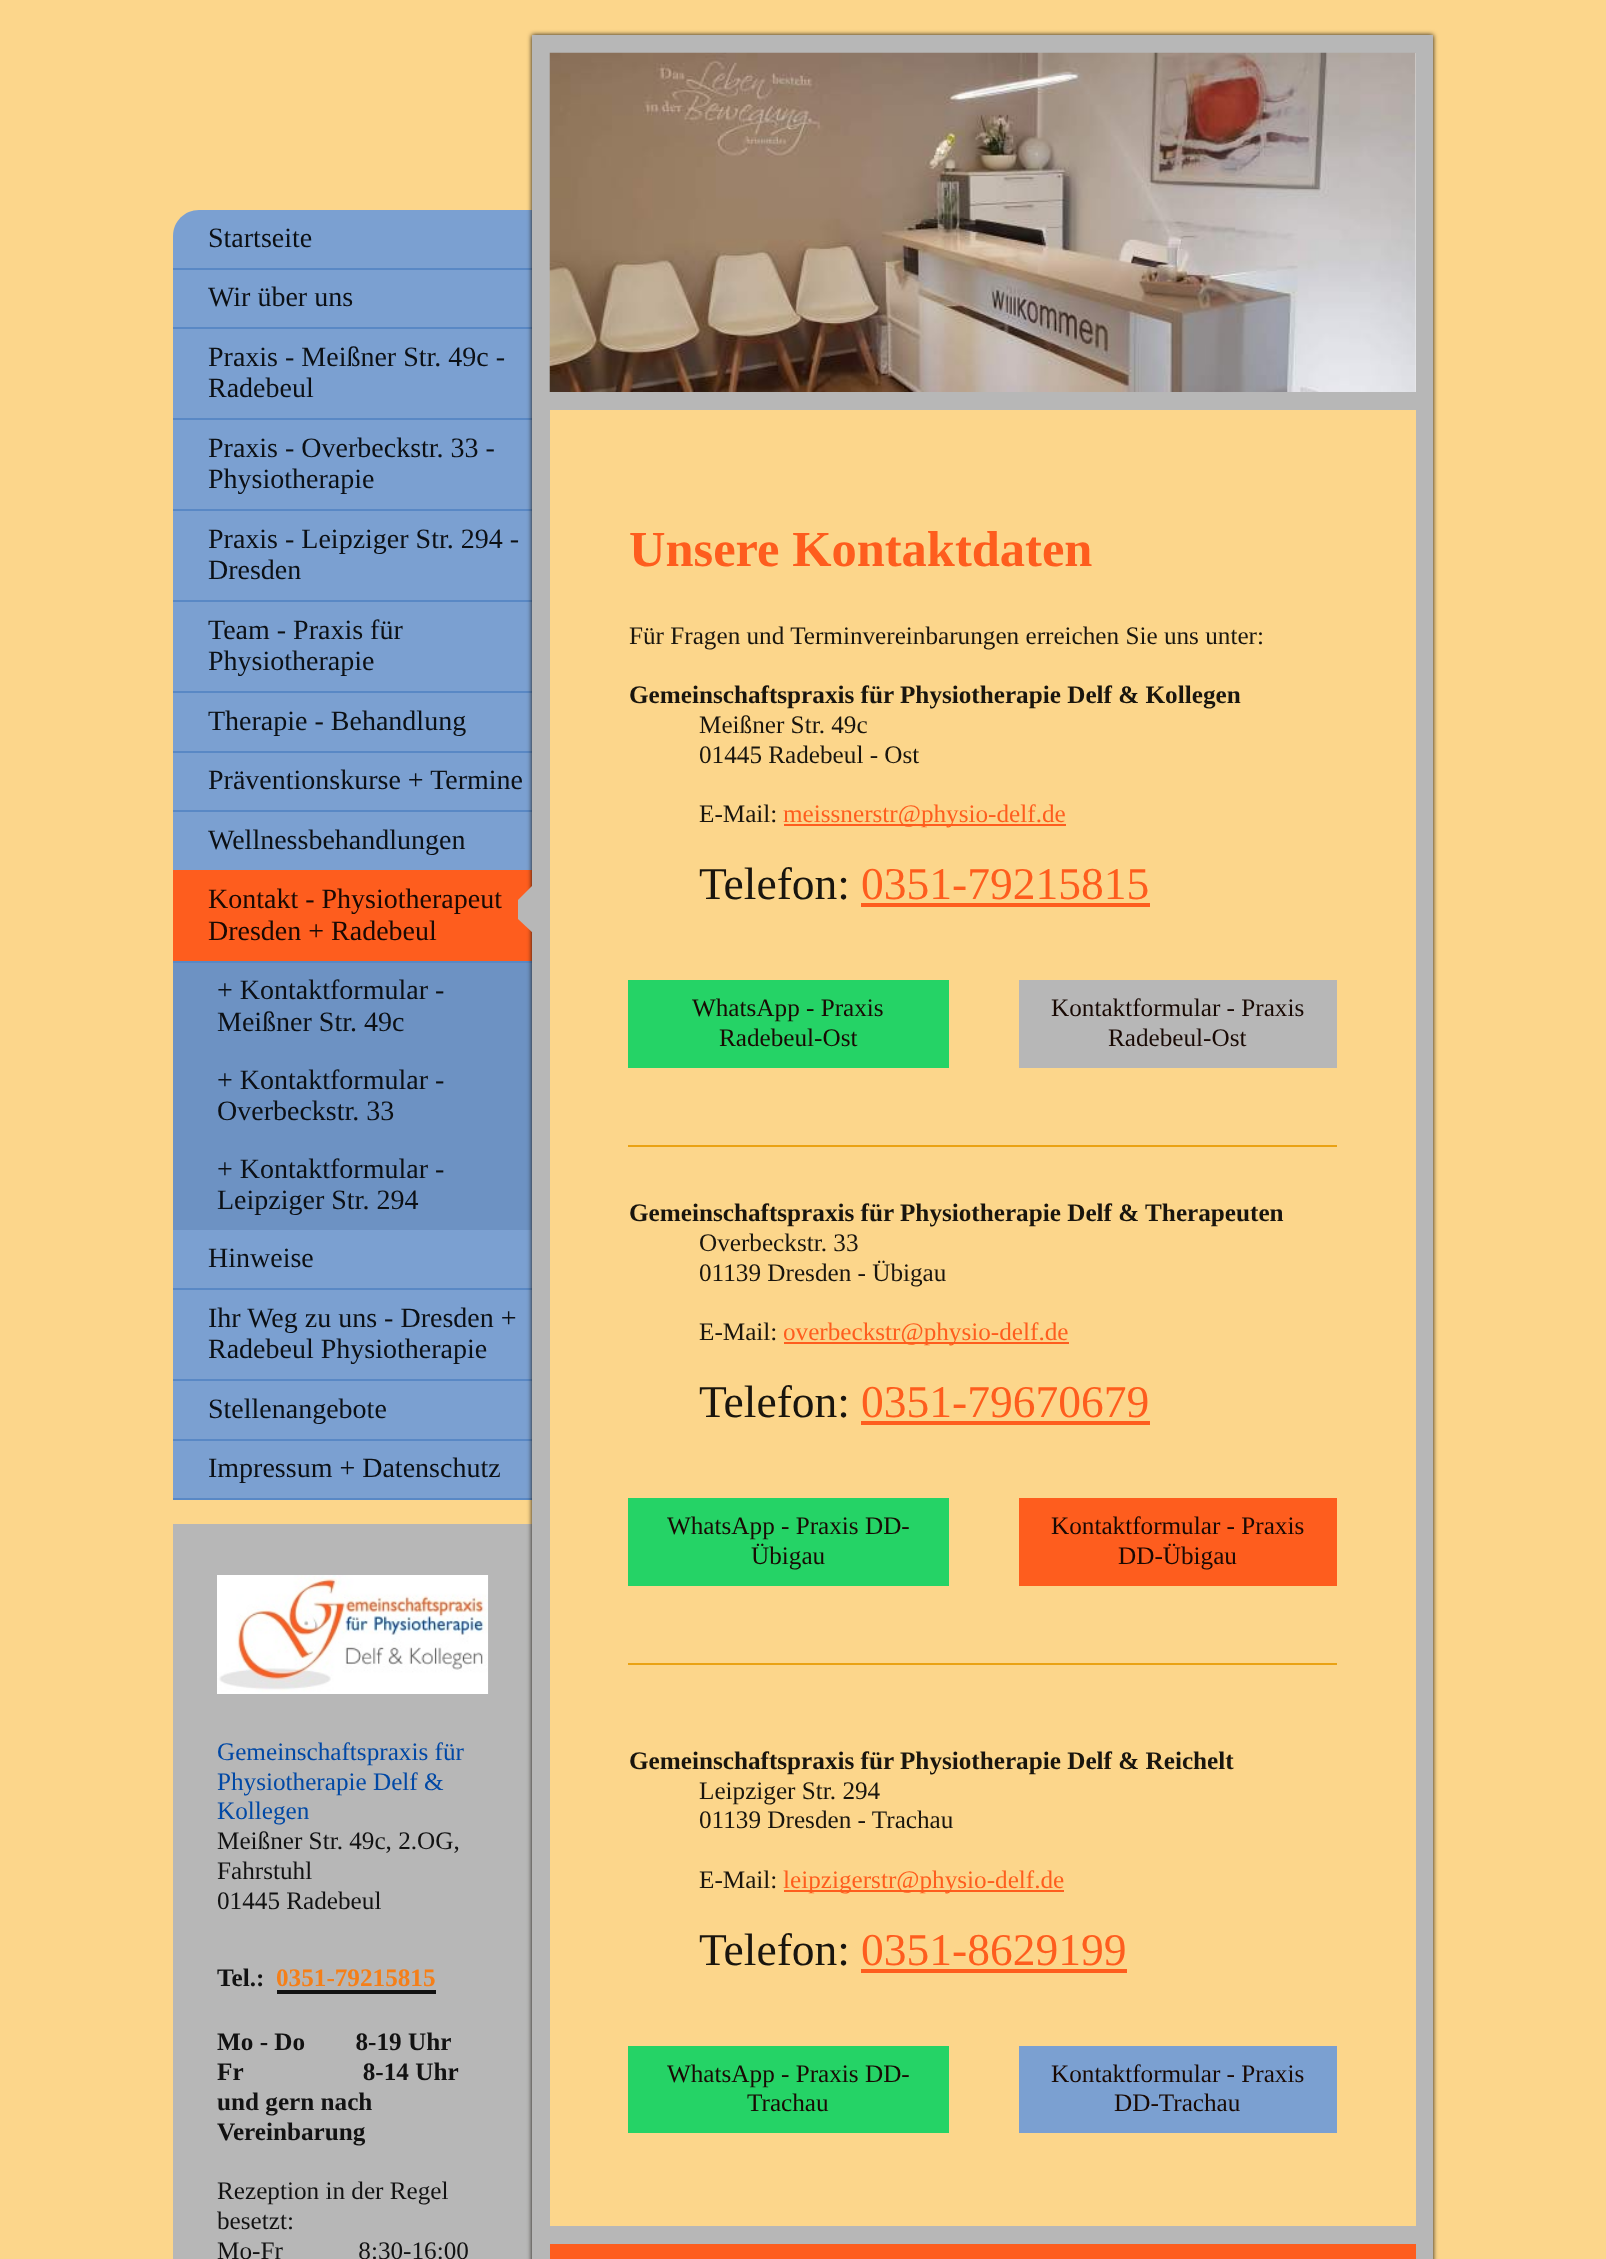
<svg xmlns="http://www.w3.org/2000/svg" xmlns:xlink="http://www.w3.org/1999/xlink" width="1606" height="2259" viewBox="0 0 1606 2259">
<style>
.cls-1{font:28px Liberation Serif;fill:#0c1015}
.cls-2{font:28px Liberation Serif;fill:#190903}
.cls-3{font:25.2px Liberation Serif;fill:#0048a5}
.cls-4{font:25.2px Liberation Serif;fill:#121212}
.cls-5{font:bold 25.2px Liberation Serif;fill:#121212}
.cls-6{font:bold 25.2px Liberation Serif;fill:#f57f18}
.cls-7{font:bold 50.5px Liberation Serif;fill:#fe5d1e}
.cls-8{font:25.2px Liberation Serif;fill:#19150e}
.cls-9{font:bold 25.2px Liberation Serif;fill:#19150e}
.cls-10{font:25.2px Liberation Serif;fill:#fe5d1e}
.cls-11{font:45.5px Liberation Serif;fill:#19150e}
.cls-12{font:45.5px Liberation Serif;fill:#fe5d1e}
.cls-13{font:25.2px Liberation Serif;fill:#190903}
</style>
<defs>
<clipPath id="clip1"><path d="M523 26H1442V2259H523ZM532 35H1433V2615H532Z" clip-rule="evenodd"/></clipPath>
</defs>
<rect width="100%" height="100%" fill="#fcd68b"/>
<path fill="#7ba0d1" d="M199 210H532V1500H173V236C173 221.5 184.5 210 199 210Z"/>
<rect fill="#5988c5" x="173" y="268" width="359" height="2"/>
<rect fill="#5988c5" x="173" y="327" width="359" height="2"/>
<rect fill="#5988c5" x="173" y="418" width="359" height="2"/>
<rect fill="#5988c5" x="173" y="509" width="359" height="2"/>
<rect fill="#5988c5" x="173" y="600" width="359" height="2"/>
<rect fill="#5988c5" x="173" y="691" width="359" height="2"/>
<rect fill="#5988c5" x="173" y="751" width="359" height="2"/>
<rect fill="#5988c5" x="173" y="810" width="359" height="2"/>
<rect fill="#fe5d1e" x="173" y="870" width="359" height="91"/>
<rect fill="#5988c5" x="173" y="961" width="359" height="2"/>
<rect fill="#6d92c3" x="173" y="963" width="359" height="267"/>
<rect fill="#5988c5" x="173" y="1288" width="359" height="2"/>
<rect fill="#5988c5" x="173" y="1379" width="359" height="2"/>
<rect fill="#5988c5" x="173" y="1439" width="359" height="2"/>
<rect fill="#5988c5" x="173" y="1498" width="359" height="2"/>
<rect fill="#b7b7b7" x="173" y="1524" width="359" height="735"/>
<g clip-path="url(#clip1)">
<rect fill="#19150e" filter="blur(2.5px)" x="532" y="35" width="901" height="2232"/>
</g>
<rect fill="#b7b7b7" x="532" y="410" width="18" height="1849"/>
<path fill="#b7b7b7" d="M534 884V934L518 919V900Z"/>
<image xlink:href="image0.png" x="217" y="1575" width="272" height="119"/>
<rect fill="#121212" x="277" y="1990" width="159" height="4"/>
<rect fill="none" stroke="#b7b7b7" stroke-width="18" x="541" y="44" width="883" height="357"/>
<rect fill="#eeeeee" x="1415" y="53" width="1" height="339"/>
<image xlink:href="image1.png" x="549" y="52" width="867" height="340"/>
<rect fill="#b7b7b7" x="1416" y="410" width="17" height="1816"/>
<rect fill="#b7b7b7" x="550" y="2226" width="883" height="18"/>
<rect fill="#fe5d1e" x="784" y="824" width="282" height="2"/>
<rect fill="#fe5d1e" x="861" y="903" width="289" height="4"/>
<rect fill="#25d366" x="628" y="980" width="321" height="88"/>
<rect fill="#b7b7b7" x="1019" y="980" width="318" height="88"/>
<rect fill="#eaa213" x="628" y="1145" width="709" height="2"/>
<rect fill="#fe5d1e" x="784" y="1342" width="285" height="2"/>
<rect fill="#fe5d1e" x="861" y="1421" width="289" height="4"/>
<rect fill="#25d366" x="628" y="1498" width="321" height="88"/>
<rect fill="#fe5d1e" x="1019" y="1498" width="318" height="88"/>
<rect fill="#eaa213" x="628" y="1663" width="709" height="2"/>
<rect fill="#fe5d1e" x="784" y="1890" width="280" height="2"/>
<rect fill="#fe5d1e" x="861" y="1969" width="266" height="4"/>
<rect fill="#25d366" x="628" y="2046" width="321" height="87"/>
<rect fill="#7ba0d1" x="1019" y="2046" width="318" height="87"/>
<rect fill="#fe5d1e" x="550" y="2244" width="866" height="15"/>
<rect fill="#b7b7b7" x="1416" y="2244" width="17" height="15"/>
<text class="cls-1" x="208" y="247">Startseite</text>
<text class="cls-1" x="208" y="306">Wir über uns</text>
<text class="cls-1"><tspan x="208" y="366">Praxis - Meißner Str. 49c -</tspan><tspan x="208" y="397">Radebeul</tspan></text>
<text class="cls-1"><tspan x="208" y="457">Praxis - Overbeckstr. 33 -</tspan><tspan x="208" y="488">Physiotherapie</tspan></text>
<text class="cls-1"><tspan x="208" y="548">Praxis - Leipziger Str. 294 -</tspan><tspan x="208" y="579">Dresden</tspan></text>
<text class="cls-1"><tspan x="208" y="639">Team - Praxis für</tspan><tspan x="208" y="670">Physiotherapie</tspan></text>
<text class="cls-1" x="208" y="730">Therapie - Behandlung</text>
<text class="cls-1" x="208" y="789">Präventionskurse + Termine</text>
<text class="cls-1" x="208" y="849">Wellnessbehandlungen</text>
<text class="cls-2"><tspan x="208" y="908">Kontakt - Physiotherapeut</tspan><tspan x="208" y="940">Dresden + Radebeul</tspan></text>
<text class="cls-1"><tspan x="217" y="999">+ Kontaktformular -</tspan><tspan x="217" y="1031">Meißner Str. 49c</tspan></text>
<text class="cls-1"><tspan x="217" y="1089">+ Kontaktformular -</tspan><tspan x="217" y="1120">Overbeckstr. 33</tspan></text>
<text class="cls-1"><tspan x="217" y="1178">+ Kontaktformular -</tspan><tspan x="217" y="1209">Leipziger Str. 294</tspan></text>
<text class="cls-1" x="208" y="1267">Hinweise</text>
<text class="cls-1"><tspan x="208" y="1327">Ihr Weg zu uns - Dresden +</tspan><tspan x="208" y="1358">Radebeul Physiotherapie</tspan></text>
<text class="cls-1" x="208" y="1418">Stellenangebote</text>
<text class="cls-1" x="208" y="1477">Impressum + Datenschutz</text>
<text class="cls-3"><tspan x="217" y="1760">Gemeinschaftspraxis für</tspan><tspan x="217" y="1790">Physiotherapie Delf &amp;</tspan><tspan x="217" y="1819">Kollegen</tspan></text>
<text class="cls-4"><tspan x="217" y="1849">Meißner Str. 49c, 2.OG,</tspan><tspan x="217" y="1879">Fahrstuhl</tspan><tspan x="217" y="1909">01445 Radebeul</tspan></text>
<text class="cls-5" x="217" y="1986">Tel.:</text>
<text class="cls-6" x="276" y="1986">0351-79215815</text>
<text class="cls-5" xml:space="preserve"><tspan x="217" y="2050">Mo - Do        8-19 Uhr</tspan><tspan x="217" y="2080">Fr                   8-14 Uhr</tspan><tspan x="217" y="2110">und gern nach</tspan><tspan x="217" y="2140">Vereinbarung</tspan></text>
<text class="cls-4" xml:space="preserve"><tspan x="217" y="2199">Rezeption in der Regel</tspan><tspan x="217" y="2229">besetzt:</tspan><tspan x="217" y="2259">Mo-Fr            8:30-16:00</tspan></text>
<text class="cls-7" x="629" y="566">Unsere Kontaktdaten</text>
<text class="cls-8" x="629" y="644">Für Fragen und Terminvereinbarungen erreichen Sie uns unter:</text>
<text class="cls-9" x="629" y="703">Gemeinschaftspraxis für Physiotherapie Delf &amp; Kollegen</text>
<text class="cls-8"><tspan x="699" y="733">Meißner Str. 49c</tspan><tspan x="699" y="763">01445 Radebeul - Ost</tspan></text>
<text class="cls-8" x="699" y="822">E-Mail:</text>
<text class="cls-10" x="783" y="822">meissnerstr@physio-delf.de</text>
<text class="cls-11" x="699" y="899">Telefon:</text>
<text class="cls-12" x="861" y="899">0351-79215815</text>
<text class="cls-13" x="692" y="1016">WhatsApp - Praxis</text>
<text class="cls-13" x="719" y="1046">Radebeul-Ost</text>
<text class="cls-13" x="1051" y="1016">Kontaktformular - Praxis</text>
<text class="cls-13" x="1108" y="1046">Radebeul-Ost</text>
<text class="cls-9" x="629" y="1221">Gemeinschaftspraxis für Physiotherapie Delf &amp; Therapeuten</text>
<text class="cls-8"><tspan x="699" y="1251">Overbeckstr. 33</tspan><tspan x="699" y="1281">01139 Dresden - Übigau</tspan></text>
<text class="cls-8" x="699" y="1340">E-Mail:</text>
<text class="cls-10" x="783" y="1340">overbeckstr@physio-delf.de</text>
<text class="cls-11" x="699" y="1417">Telefon:</text>
<text class="cls-12" x="861" y="1417">0351-79670679</text>
<text class="cls-13" x="667" y="1534">WhatsApp - Praxis DD-</text>
<text class="cls-13" x="751" y="1564">Übigau</text>
<text class="cls-13" x="1051" y="1534">Kontaktformular - Praxis</text>
<text class="cls-13" x="1118" y="1564">DD-Übigau</text>
<text class="cls-9" x="629" y="1769">Gemeinschaftspraxis für Physiotherapie Delf &amp; Reichelt</text>
<text class="cls-8"><tspan x="699" y="1799">Leipziger Str. 294</tspan><tspan x="699" y="1828">01139 Dresden - Trachau</tspan></text>
<text class="cls-8" x="699" y="1888">E-Mail:</text>
<text class="cls-10" x="783" y="1888">leipzigerstr@physio-delf.de</text>
<text class="cls-11" x="699" y="1965">Telefon:</text>
<text class="cls-12" x="861" y="1965">0351-8629199</text>
<text class="cls-13" x="667" y="2082">WhatsApp - Praxis DD-</text>
<text class="cls-13" x="747" y="2111">Trachau</text>
<text class="cls-13" x="1051" y="2082">Kontaktformular - Praxis</text>
<text class="cls-13" x="1114" y="2111">DD-Trachau</text>
</svg>
